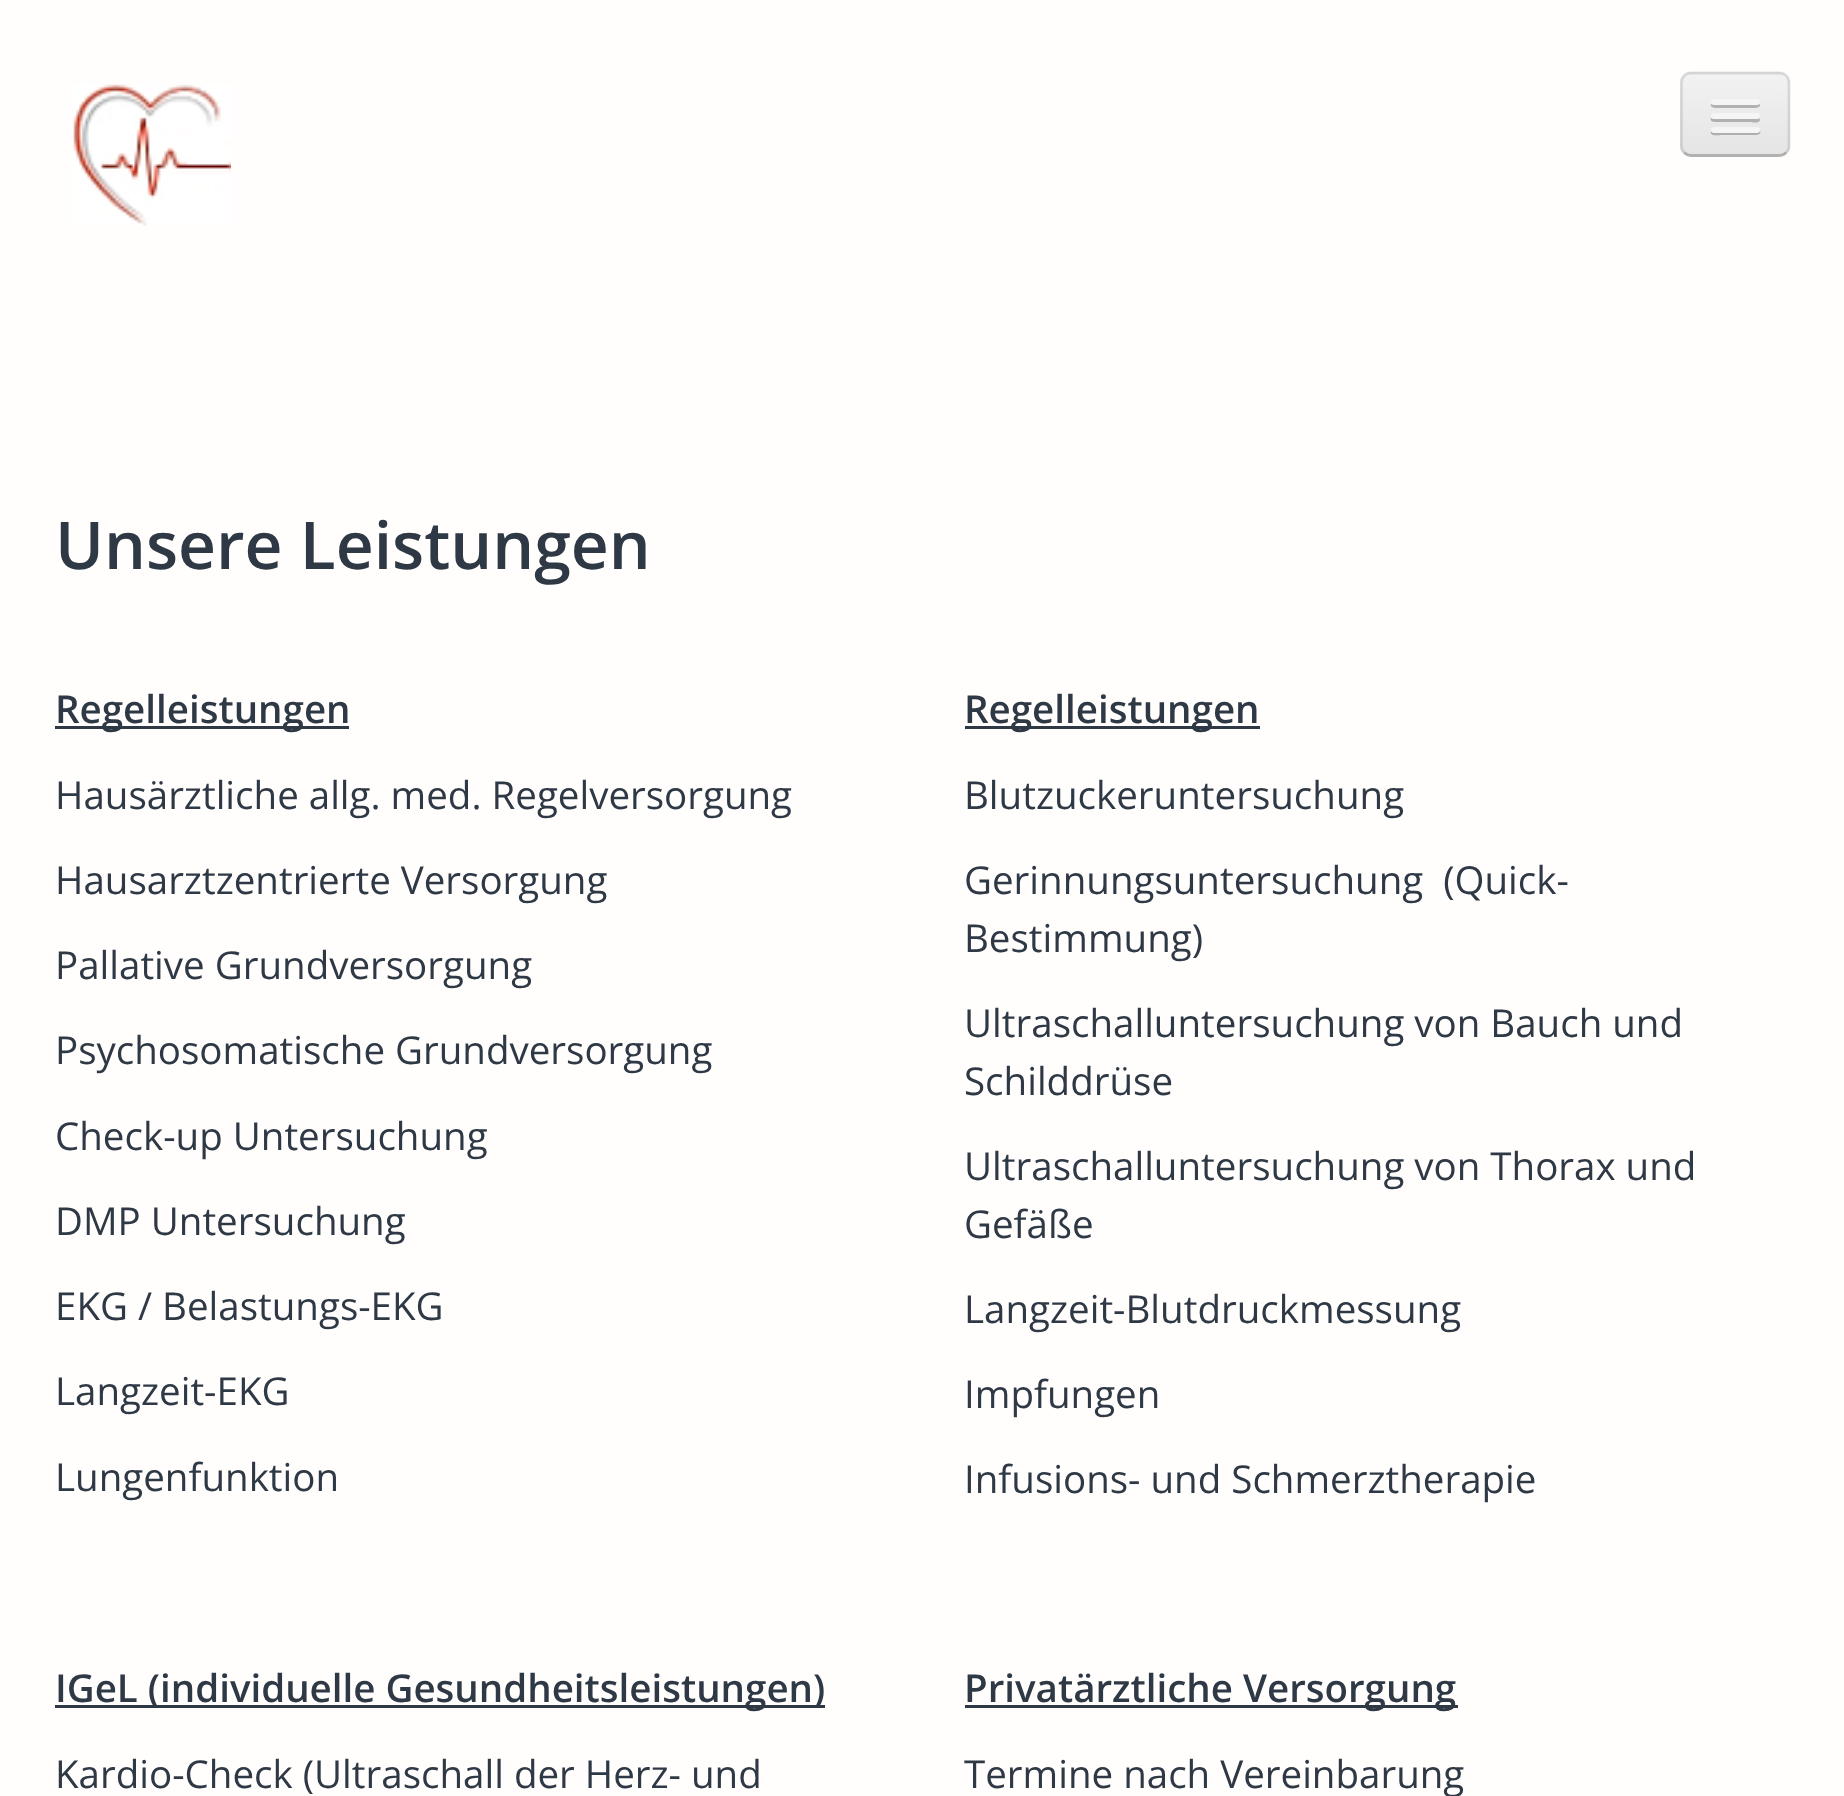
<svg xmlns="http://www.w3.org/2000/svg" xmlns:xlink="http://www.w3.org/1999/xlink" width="1844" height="1796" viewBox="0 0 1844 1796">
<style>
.cls-1{font:600 66px Open Sans;fill:#2f3945}
.cls-2{font:600 38.5px Open Sans;fill:#2f3945}
.cls-3{font:38.5px Open Sans;fill:#2f3945}
</style>
<defs>
<clipPath id="clip1"><rect x="1680" y="72" width="110" height="85" rx="11"/></clipPath>
<linearGradient id="g1" gradientUnits="userSpaceOnUse" x1="1735" y1="74" x2="1735" y2="154"><stop offset="0" stop-color="#f2f2f2"/><stop offset="1" stop-color="#e5e5e5"/></linearGradient>
</defs>
<rect width="100%" height="100%" fill="#fffefd"/>
<image xlink:href="image0.png" x="73" y="84" width="158" height="142"/>
<rect fill="#ededed" x="1680" y="72" width="110" height="85" rx="11"/>
<g clip-path="url(#clip1)">
<rect fill="url(#g1)" x="1680" y="74" width="110" height="80"/>
</g>
<path fill="none" stroke="#000000" stroke-opacity="0.25" stroke-width="2.8" d="M1786 152.5C1784.5 154.5 1782 155.5 1779 155.5H1691C1688.5 155.5 1686 154.5 1684.5 152.5"/>
<path fill="none" stroke="#000000" stroke-opacity="0.1" stroke-width="2.8" d="M1684.5 152.5C1682.5 151 1681.5 148.5 1681.5 146V82.5C1681.5 80 1682.5 77.5 1684.5 75.5C1686 74 1688.5 73 1691 73H1779C1782 73 1784.5 74 1786 75.5C1788 77.5 1789 80 1789 82.5V146C1789 148.5 1788 151 1786 152.5"/>
<path fill="#b2b2b2" d="M1711 104C1709 109 1720 108 1721 108H1750C1750 108 1764 109 1759 103L1758 104H1713Z"/>
<rect fill="#f5f5f5" x="1711" y="99" width="49" height="6" rx="3"/>
<path fill="#b0b0b0" d="M1711 118C1708 123 1720 122 1721 122H1750C1752 122 1759 124 1760 120L1759 117L1758 118C1753 119 1713 119 1711 118Z"/>
<rect fill="#f5f5f5" x="1711" y="113" width="49" height="6" rx="3"/>
<path fill="#aeaeae" d="M1711 131C1709 137 1720 135 1721 135H1750C1751 135 1763 136 1760 131L1758 132H1713Z"/>
<rect fill="#f5f5f5" x="1711" y="127" width="49" height="6" rx="3"/>
<rect fill="#2f3945" x="55" y="726" width="294" height="3"/>
<rect fill="#2f3945" x="965" y="726" width="295" height="3"/>
<rect fill="#2f3945" x="55" y="1705" width="770" height="3"/>
<rect fill="#2f3945" x="965" y="1705" width="493" height="3"/>
<text class="cls-1" x="55" y="569">Unsere Leistungen</text>
<text class="cls-2" x="55" y="723">Regelleistungen</text>
<text class="cls-3" x="55" y="809">Hausärztliche allg. med. Regelversorgung</text>
<text class="cls-3" x="55" y="894">Hausarztzentrierte Versorgung</text>
<text class="cls-3" x="55" y="979">Pallative Grundversorgung</text>
<text class="cls-3" x="55" y="1064">Psychosomatische Grundversorgung</text>
<text class="cls-3" x="55" y="1150">Check-up Untersuchung</text>
<text class="cls-3" x="55" y="1235">DMP Untersuchung</text>
<text class="cls-3" x="55" y="1320">EKG / Belastungs-EKG</text>
<text class="cls-3" x="55" y="1405">Langzeit-EKG</text>
<text class="cls-3" x="55" y="1491">Lungenfunktion</text>
<text class="cls-2" x="964" y="723">Regelleistungen</text>
<text class="cls-3" x="964" y="809">Blutzuckeruntersuchung</text>
<text class="cls-3" xml:space="preserve"><tspan x="964" y="894">Gerinnungsuntersuchung  (Quick-</tspan><tspan x="964" y="952">Bestimmung)</tspan></text>
<text class="cls-3"><tspan x="964" y="1037">Ultraschalluntersuchung von Bauch und</tspan><tspan x="964" y="1095">Schilddrüse</tspan></text>
<text class="cls-3"><tspan x="964" y="1180">Ultraschalluntersuchung von Thorax und</tspan><tspan x="964" y="1238">Gefäße</tspan></text>
<text class="cls-3" x="964" y="1323">Langzeit-Blutdruckmessung</text>
<text class="cls-3" x="964" y="1408">Impfungen</text>
<text class="cls-3" x="964" y="1493">Infusions- und Schmerztherapie</text>
<text class="cls-2" x="55" y="1702">IGeL (individuelle Gesundheitsleistungen)</text>
<text class="cls-3" x="55" y="1788">Kardio-Check (Ultraschall der Herz- und</text>
<text class="cls-2" x="964" y="1702">Privatärztliche Versorgung</text>
<text class="cls-3" x="964" y="1788">Termine nach Vereinbarung</text>
</svg>
